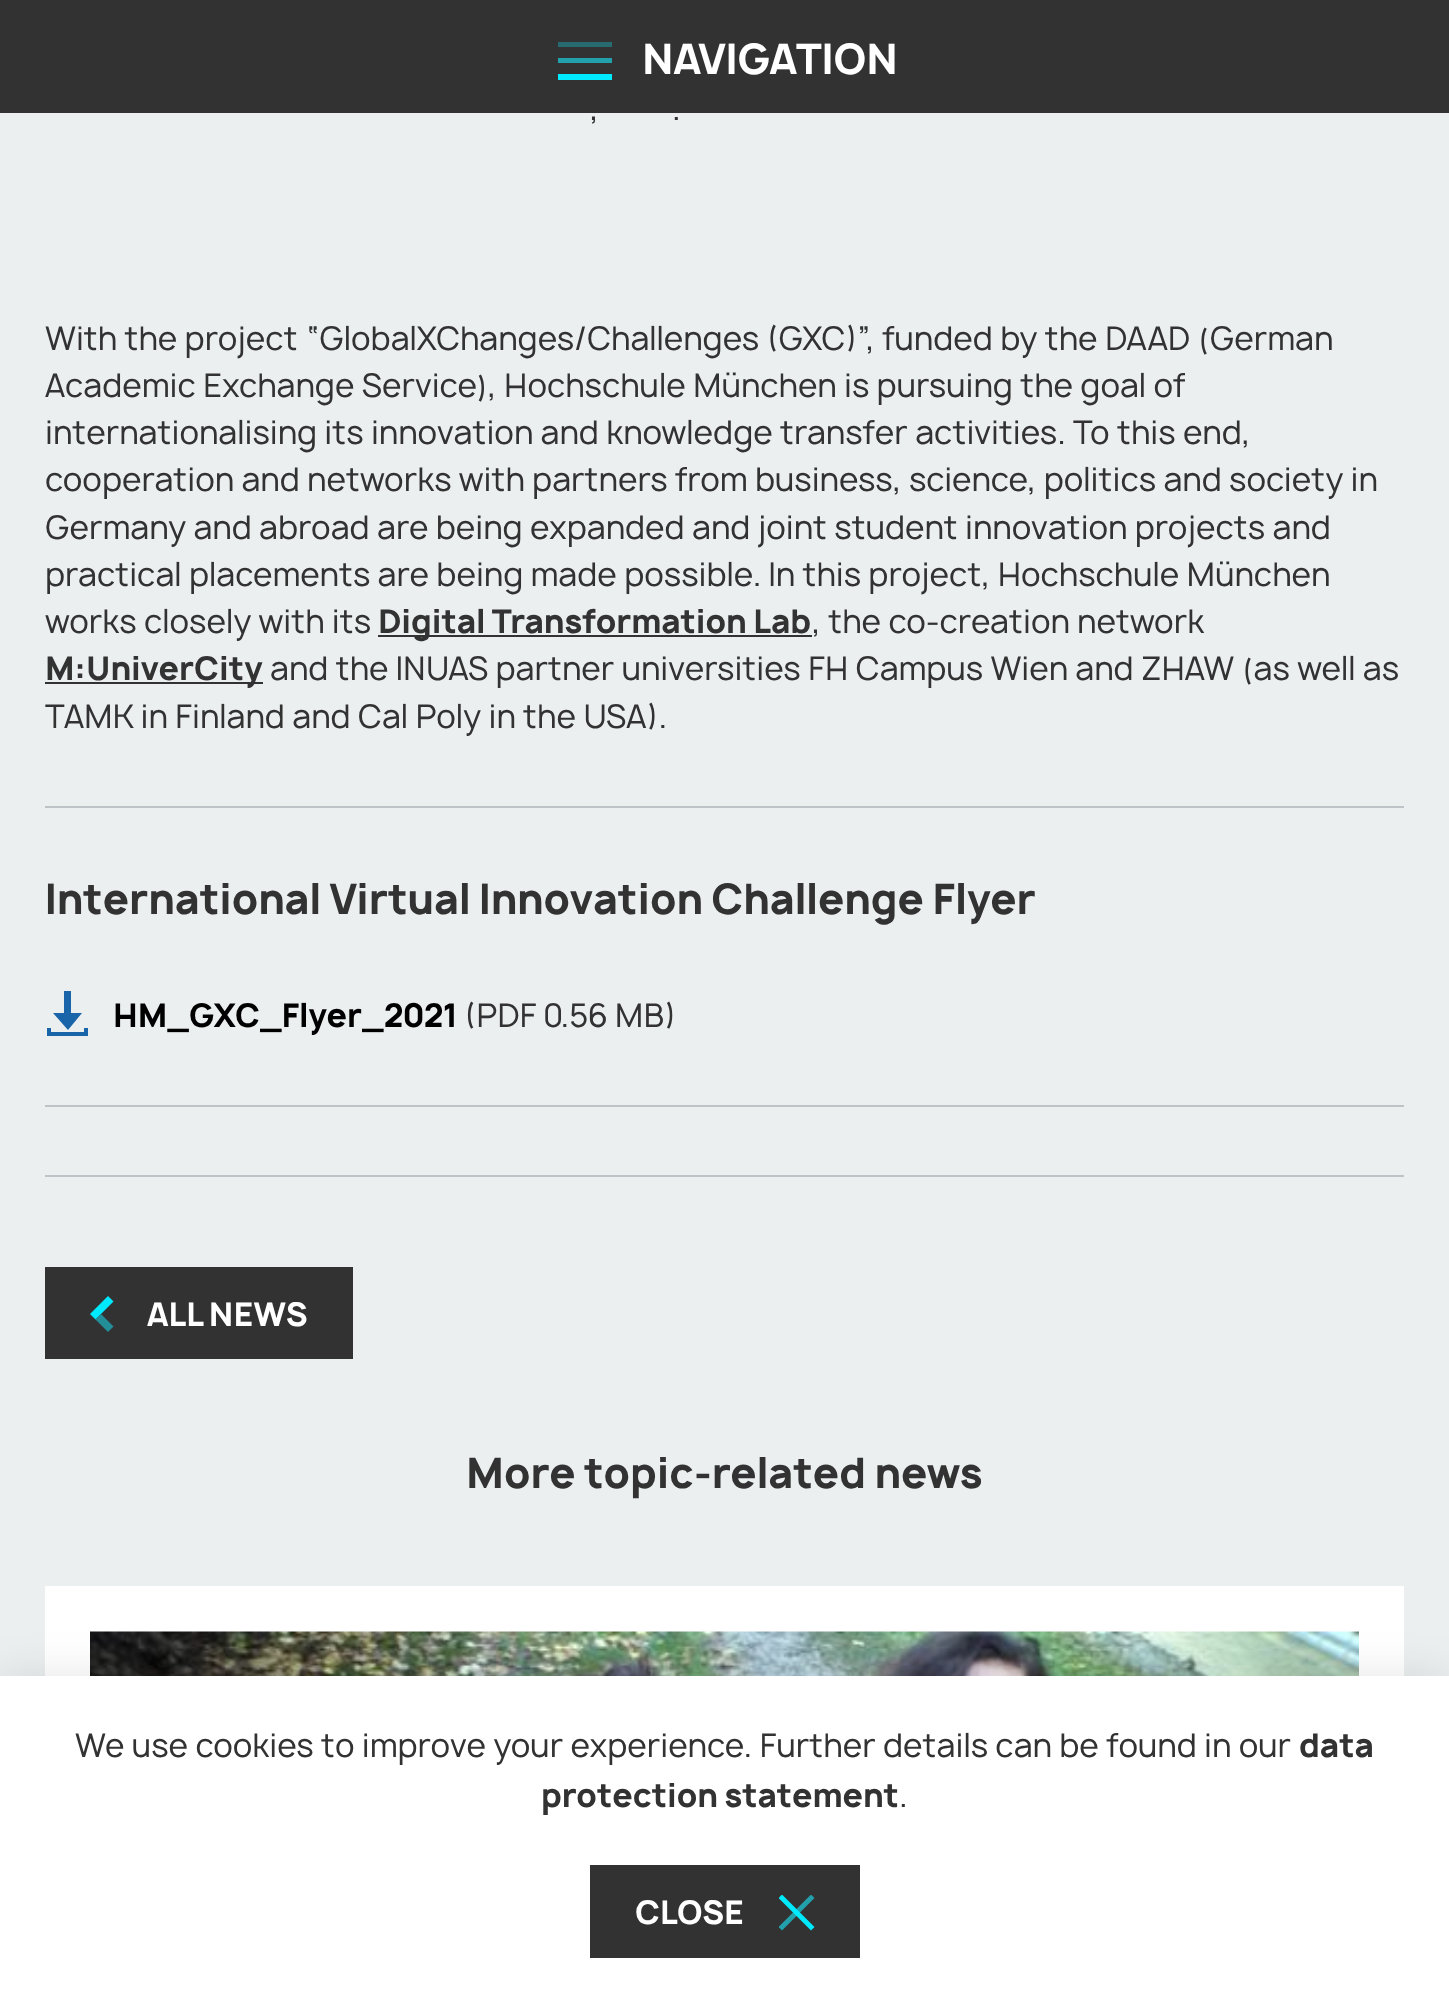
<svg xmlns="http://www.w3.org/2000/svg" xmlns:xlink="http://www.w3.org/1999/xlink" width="1449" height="2002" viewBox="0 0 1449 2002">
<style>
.cls-1{font:bold 40.5px Manrope;fill:#ffffff}
.cls-2{font:31.5px Manrope;fill:#323232}
.cls-3{font:bold 31.5px Manrope;fill:#323232}
.cls-4{font:bold 40.5px Manrope;fill:#323232}
.cls-5{font:bold 31.5px Manrope;fill:#000000}
.cls-6{font:bold 31.5px Manrope;fill:#ffffff}
</style>
<defs>
<clipPath id="clip1"><rect x="779" y="1895" width="36" height="36"/></clipPath>
</defs>
<rect width="100%" height="100%" fill="#ebeff0"/>
<rect fill="#323232" x="0" y="0" width="1449" height="113"/>
<rect fill="#276a6f" x="558" y="42" width="54" height="5"/>
<rect fill="#22a0ac" x="558" y="58" width="54" height="5"/>
<rect fill="#00eaff" x="558" y="74" width="54" height="6"/>
<rect fill="#323232" x="378" y="635" width="434" height="2"/>
<rect fill="#323232" x="45" y="682" width="218" height="2"/>
<rect fill="#bec3c7" x="45" y="806" width="1359" height="2"/>
<rect fill="#bec3c7" x="45" y="1105" width="1359" height="2"/>
<path fill="#1a65a9" d="M68 1030L53 1013H64V991H71V1013H82ZM84 1028V1032H51V1028H47V1036H88V1028Z"/>
<rect fill="#bec3c7" x="45" y="1175" width="1359" height="2"/>
<rect fill="#323232" x="45" y="1267" width="308" height="92"/>
<path fill="#00eaff" d="M90 1314L108 1296L113.5 1301.5L95.5 1319.5Z"/>
<path fill="#238e98" d="M95.5 1319.5L101 1314L113.5 1326.5L108 1332Z"/>
<rect fill="#ffffff" x="45" y="1586" width="1359" height="90"/>
<image xlink:href="image0.png" x="90" y="1631" width="1269" height="45"/>
<rect fill="#000000" fill-opacity="0.1" filter="blur(22.5px)" x="0" y="1676" width="1449" height="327"/>
<rect fill="#ffffff" x="0" y="1676" width="1449" height="326"/>
<rect fill="#323232" x="590" y="1865" width="270" height="93"/>
<g clip-path="url(#clip1)">
<path fill="#22a0ac" d="M778.5 1927L811 1894.5L814.5 1898L782 1930.5Z"/>
<path fill="#00eaff" d="M782 1894.5L814.5 1927L811 1930.5L778.5 1898Z"/>
</g>
<text class="cls-1" x="642" y="74">NAVIGATION</text>
<text class="cls-2" x="590" y="120">,</text>
<text class="cls-2" x="672" y="120">.</text>
<text class="cls-2"><tspan x="45" y="350">With the project “GlobalXChanges/Challenges (GXC)”, funded by the DAAD (German</tspan><tspan x="45" y="397">Academic Exchange Service), Hochschule München is pursuing the goal of</tspan><tspan x="45" y="444">internationalising its innovation and knowledge transfer activities. To this end,</tspan><tspan x="45" y="491">cooperation and networks with partners from business, science, politics and society in</tspan><tspan x="45" y="539">Germany and abroad are being expanded and joint student innovation projects and</tspan><tspan x="45" y="586">practical placements are being made possible. In this project, Hochschule München</tspan><tspan x="45" y="633">works closely with its</tspan></text>
<text class="cls-3" x="378" y="633">Digital Transformation Lab</text>
<text class="cls-2" x="812" y="633">, the co-creation network</text>
<text class="cls-3" x="45" y="680">M:UniverCity</text>
<text class="cls-2" x="270" y="680">and the INUAS partner universities FH Campus Wien and ZHAW (as well as</text>
<text class="cls-2" x="45" y="728">TAMK in Finland and Cal Poly in the USA).</text>
<text class="cls-4" x="45" y="914">International Virtual Innovation Challenge Flyer</text>
<text class="cls-5" x="113" y="1027">HM_GXC_Flyer_2021</text>
<text class="cls-2" x="464" y="1027">(PDF 0.56 MB)</text>
<text class="cls-6" x="147" y="1326">ALL NEWS</text>
<text class="cls-4" x="466" y="1488">More topic-related news</text>
<text class="cls-2" x="75" y="1757">We use cookies to improve your experience. Further details can be found in our</text>
<text class="cls-3" x="1299" y="1757">data</text>
<text class="cls-3" x="541" y="1807">protection statement</text>
<text class="cls-2" x="899" y="1807">.</text>
<text class="cls-6" x="635" y="1924">CLOSE</text>
</svg>
